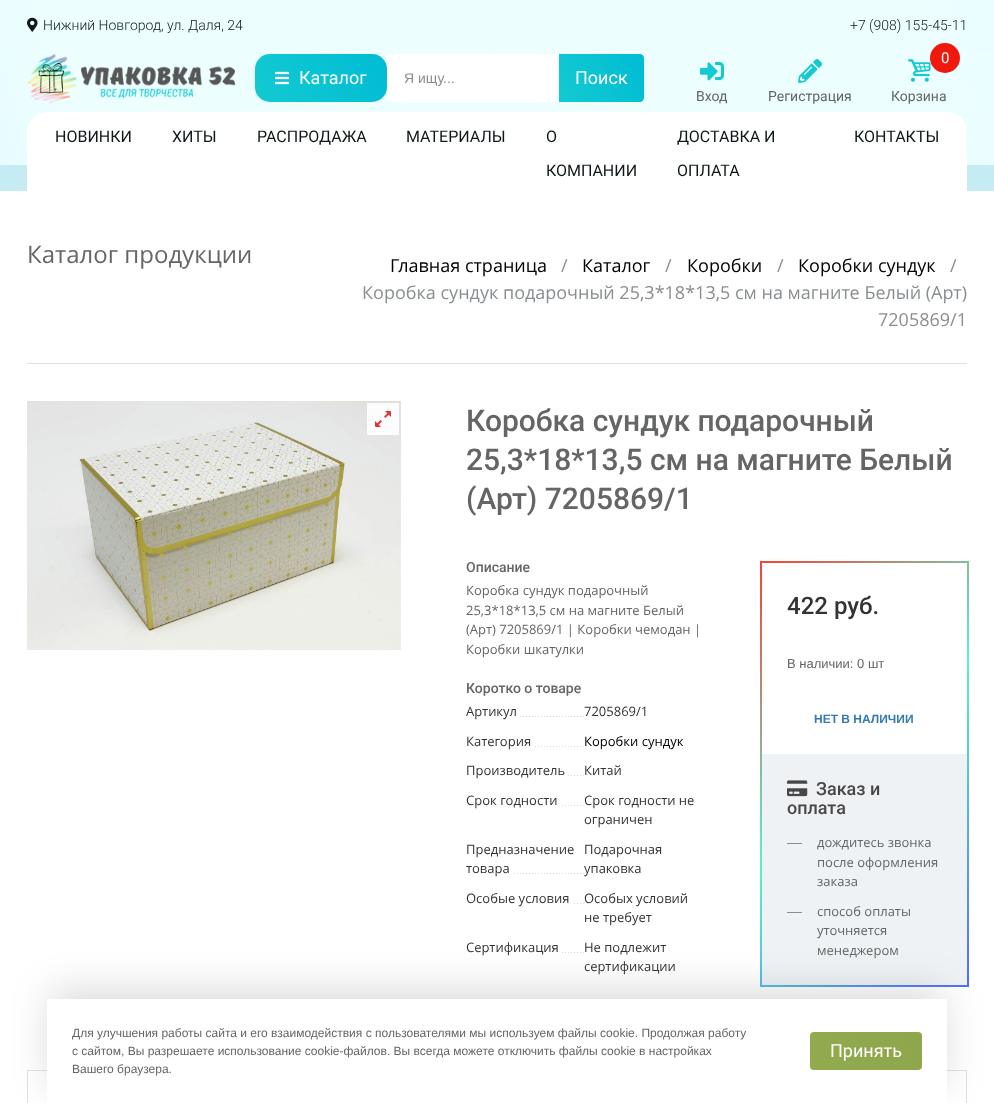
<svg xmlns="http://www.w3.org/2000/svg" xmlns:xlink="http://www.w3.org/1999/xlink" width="994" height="1103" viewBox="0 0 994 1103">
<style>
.cls-1{font:300 14px Roboto;fill:#0f191a}
.cls-2{font:18px Roboto;fill:#ffffff}
.cls-3{font:14px Liberation Sans;fill:#898e91}
.cls-4{font:14px Roboto;fill:#646565}
.cls-5{font:15px Roboto;fill:#ffffff}
.cls-6{font:16px Roboto;fill:#0f191a}
.cls-7{font:24px Open Sans;fill:#646565}
.cls-8{font:18px Open Sans;fill:#000000}
.cls-9{font:18px Open Sans;fill:#898e91}
.cls-10{font:500 30px Roboto;fill:#646565}
.cls-11{font:500 14px Roboto;fill:#646565}
.cls-12{font:13px Open Sans;fill:#646565}
.cls-13{font:13px Open Sans;fill:#333333}
.cls-14{font:13px Open Sans;fill:#000000}
.cls-15{font:500 24px Roboto;fill:#333333}
.cls-16{font:13px Liberation Sans;fill:#646565}
.cls-17{font:bold 12px Liberation Sans;fill:#337ab7}
.cls-18{font:500 18px Roboto;fill:#484747}
.cls-19{font:12px Liberation Sans;fill:#646565}
</style>
<defs>
<linearGradient id="g1" gradientUnits="userSpaceOnUse" x1="258" y1="108" x2="384" y2="48"><stop offset="0" stop-color="#13cad1"/><stop offset="1" stop-color="#00bcd4"/></linearGradient>
<linearGradient id="g2" gradientUnits="userSpaceOnUse" x1="557" y1="99" x2="646" y2="57"><stop offset="0" stop-color="#13cad1"/><stop offset="1" stop-color="#00bcd4"/></linearGradient>
<linearGradient id="g3" gradientUnits="userSpaceOnUse" x1="706" y1="615" x2="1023" y2="933"><stop offset="0" stop-color="#f44336"/><stop offset="0.48" stop-color="#57f2cc"/><stop offset="1" stop-color="#526cff"/></linearGradient>
<linearGradient id="g4" gradientUnits="userSpaceOnUse" x1="813" y1="1076" x2="919" y2="1026"><stop offset="0" stop-color="#92ab4f"/><stop offset="1" stop-color="#8ea64c"/></linearGradient>
</defs>
<rect width="100%" height="100%" fill="#ffffff"/>
<rect fill="#c6ecf3" x="0" y="165" width="994" height="26"/>
<image xlink:href="image0.png" x="0" y="0" width="994" height="165"/>
<image xlink:href="image1.png" x="27" y="17" width="11" height="15"/>
<image xlink:href="image2.png" x="27" y="53" width="208" height="51"/>
<rect fill="url(#g1)" x="255" y="54" width="132" height="48" rx="15"/>
<image xlink:href="image3.png" x="275" y="71" width="14" height="14"/>
<path fill="#ffffff" stroke="#ffffff" d="M391 54.5H558.5V101.5H391C389 101.5 387.5 100 387.5 98V58C387.5 56 389 54.5 391 54.5Z"/>
<path fill="url(#g2)" d="M559 54H640C642 54 644 56 644 58V98C644 100 642 102 640 102H559Z"/>
<image xlink:href="image4.png" x="700" y="62" width="24" height="19"/>
<image xlink:href="image5.png" x="798" y="59" width="24" height="24"/>
<image xlink:href="image6.png" x="908" y="59" width="23" height="23"/>
<circle fill="#f1190d" cx="945" cy="58" r="15"/>
<path fill="#ffffff" d="M47 112H947C958 112 967 121 967 132V191H27V132C27 121 36 112 47 112Z"/>
<rect fill="#e1e1e1" x="27" y="363" width="940" height="1"/>
<image xlink:href="image7.png" x="27" y="401" width="374" height="249"/>
<image xlink:href="image8.png" x="367" y="403" width="32" height="32"/>
<image xlink:href="image9.png" x="520" y="716" width="64" height="1"/>
<image xlink:href="image10.png" x="535" y="746" width="49" height="1"/>
<image xlink:href="image11.png" x="568" y="775" width="16" height="1"/>
<image xlink:href="image12.png" x="562" y="805" width="22" height="1"/>
<image xlink:href="image13.png" x="514" y="873" width="70" height="1"/>
<image xlink:href="image14.png" x="574" y="903" width="10" height="1"/>
<image xlink:href="image12.png" x="562" y="952" width="22" height="1"/>
<rect fill="url(#g3)" x="760" y="561" width="209" height="426"/>
<rect fill="#ffffff" x="762" y="563" width="205" height="191"/>
<rect fill="#eff2f5" x="762" y="754" width="205" height="231"/>
<image xlink:href="image15.png" x="787" y="780" width="21" height="17"/>
<rect fill="#898e91" x="787" y="843" width="15" height="1"/>
<rect fill="#898e91" x="787" y="912" width="15" height="1"/>
<rect fill="none" stroke="#e1e1e1" x="27.5" y="1070.5" width="939" height="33"/>
<rect fill="#000000" fill-opacity="0.16" filter="blur(20px)" x="52" y="992" width="890" height="94"/>
<rect fill="#ffffff" x="47" y="999" width="900" height="104"/>
<rect fill="url(#g4)" x="810" y="1032" width="112" height="38" rx="4"/>
<text class="cls-1" x="43" y="30">Нижний Новгород, ул. Даля, 24</text>
<text class="cls-1" x="850" y="30">+7 (908) 155-45-11</text>
<text class="cls-2" x="299" y="84">Каталог</text>
<text class="cls-3" x="404" y="83">Я ищу...</text>
<text class="cls-2" x="575" y="84">Поиск</text>
<text class="cls-4" x="696" y="101">Вход</text>
<text class="cls-4" x="768" y="101">Регистрация</text>
<text class="cls-5" x="941" y="63">0</text>
<text class="cls-4" x="891" y="101">Корзина</text>
<text class="cls-6" x="55" y="142">НОВИНКИ</text>
<text class="cls-6" x="172" y="142">ХИТЫ</text>
<text class="cls-6" x="257" y="142">РАСПРОДАЖА</text>
<text class="cls-6" x="406" y="142">МАТЕРИАЛЫ</text>
<text class="cls-6" x="546" y="142">О</text>
<text class="cls-6" x="546" y="176">КОМПАНИИ</text>
<text class="cls-6" x="677" y="142">ДОСТАВКА И</text>
<text class="cls-6" x="677" y="176">ОПЛАТА</text>
<text class="cls-6" x="854" y="142">КОНТАКТЫ</text>
<text class="cls-7" x="27" y="263">Каталог продукции</text>
<text class="cls-8" x="390" y="272">Главная страница</text>
<text class="cls-9" x="561" y="272">/</text>
<text class="cls-8" x="582" y="272">Каталог</text>
<text class="cls-9" x="665" y="272">/</text>
<text class="cls-8" x="687" y="272">Коробки</text>
<text class="cls-9" x="777" y="272">/</text>
<text class="cls-8" x="798" y="272">Коробки сундук</text>
<text class="cls-9" x="950" y="272">/</text>
<text class="cls-9" x="362" y="299">Коробка сундук подарочный 25,3*18*13,5 см на магните Белый (Арт)</text>
<text class="cls-9" x="878" y="326">7205869/1</text>
<text class="cls-10"><tspan x="466" y="431">Коробка сундук подарочный</tspan><tspan x="466" y="470">25,3*18*13,5 см на магните Белый</tspan><tspan x="466" y="509">(Арт) 7205869/1</tspan></text>
<text class="cls-11" x="466" y="572">Описание</text>
<text class="cls-12"><tspan x="466" y="595">Коробка сундук подарочный</tspan><tspan x="466" y="615">25,3*18*13,5 см на магните Белый</tspan><tspan x="466" y="634">(Арт) 7205869/1 | Коробки чемодан |</tspan><tspan x="466" y="654">Коробки шкатулки</tspan></text>
<text class="cls-11" x="466" y="693">Коротко о товаре</text>
<text class="cls-13" x="466" y="716">Артикул</text>
<text class="cls-13" x="584" y="716">7205869/1</text>
<text class="cls-13" x="466" y="746">Категория</text>
<text class="cls-14" x="584" y="746">Коробки сундук</text>
<text class="cls-13" x="466" y="775">Производитель</text>
<text class="cls-13" x="584" y="775">Китай</text>
<text class="cls-13" x="466" y="805">Срок годности</text>
<text class="cls-13"><tspan x="584" y="805">Срок годности не</tspan><tspan x="584" y="824">ограничен</tspan></text>
<text class="cls-13"><tspan x="466" y="854">Предназначение</tspan><tspan x="466" y="873">товара</tspan></text>
<text class="cls-13"><tspan x="584" y="854">Подарочная</tspan><tspan x="584" y="873">упаковка</tspan></text>
<text class="cls-13" x="466" y="903">Особые условия</text>
<text class="cls-13"><tspan x="584" y="903">Особых условий</tspan><tspan x="584" y="922">не требует</tspan></text>
<text class="cls-13" x="466" y="952">Сертификация</text>
<text class="cls-13"><tspan x="584" y="952">Не подлежит</tspan><tspan x="584" y="971">сертификации</tspan></text>
<text class="cls-15" x="787" y="614">422 руб.</text>
<text class="cls-16" x="787" y="668">В наличии: 0 шт</text>
<text class="cls-17" x="814" y="723">НЕТ В НАЛИЧИИ</text>
<text class="cls-18" x="816" y="795">Заказ и</text>
<text class="cls-18" x="787" y="814">оплата</text>
<text class="cls-12"><tspan x="817" y="847">дождитесь звонка</tspan><tspan x="817" y="867">после оформления</tspan><tspan x="817" y="886">заказа</tspan></text>
<text class="cls-12"><tspan x="817" y="916">способ оплаты</tspan><tspan x="817" y="935">уточняется</tspan><tspan x="817" y="955">менеджером</tspan></text>
<text class="cls-19"><tspan x="72" y="1037">Для улучшения работы сайта и его взаимодействия с пользователями мы используем файлы cookie. Продолжая работу</tspan><tspan x="72" y="1055">с сайтом, Вы разрешаете использование cookie-файлов. Вы всегда можете отключить файлы cookie в настройках</tspan><tspan x="72" y="1073">Вашего браузера.</tspan></text>
<text class="cls-2" x="830" y="1057">Принять</text>
</svg>
